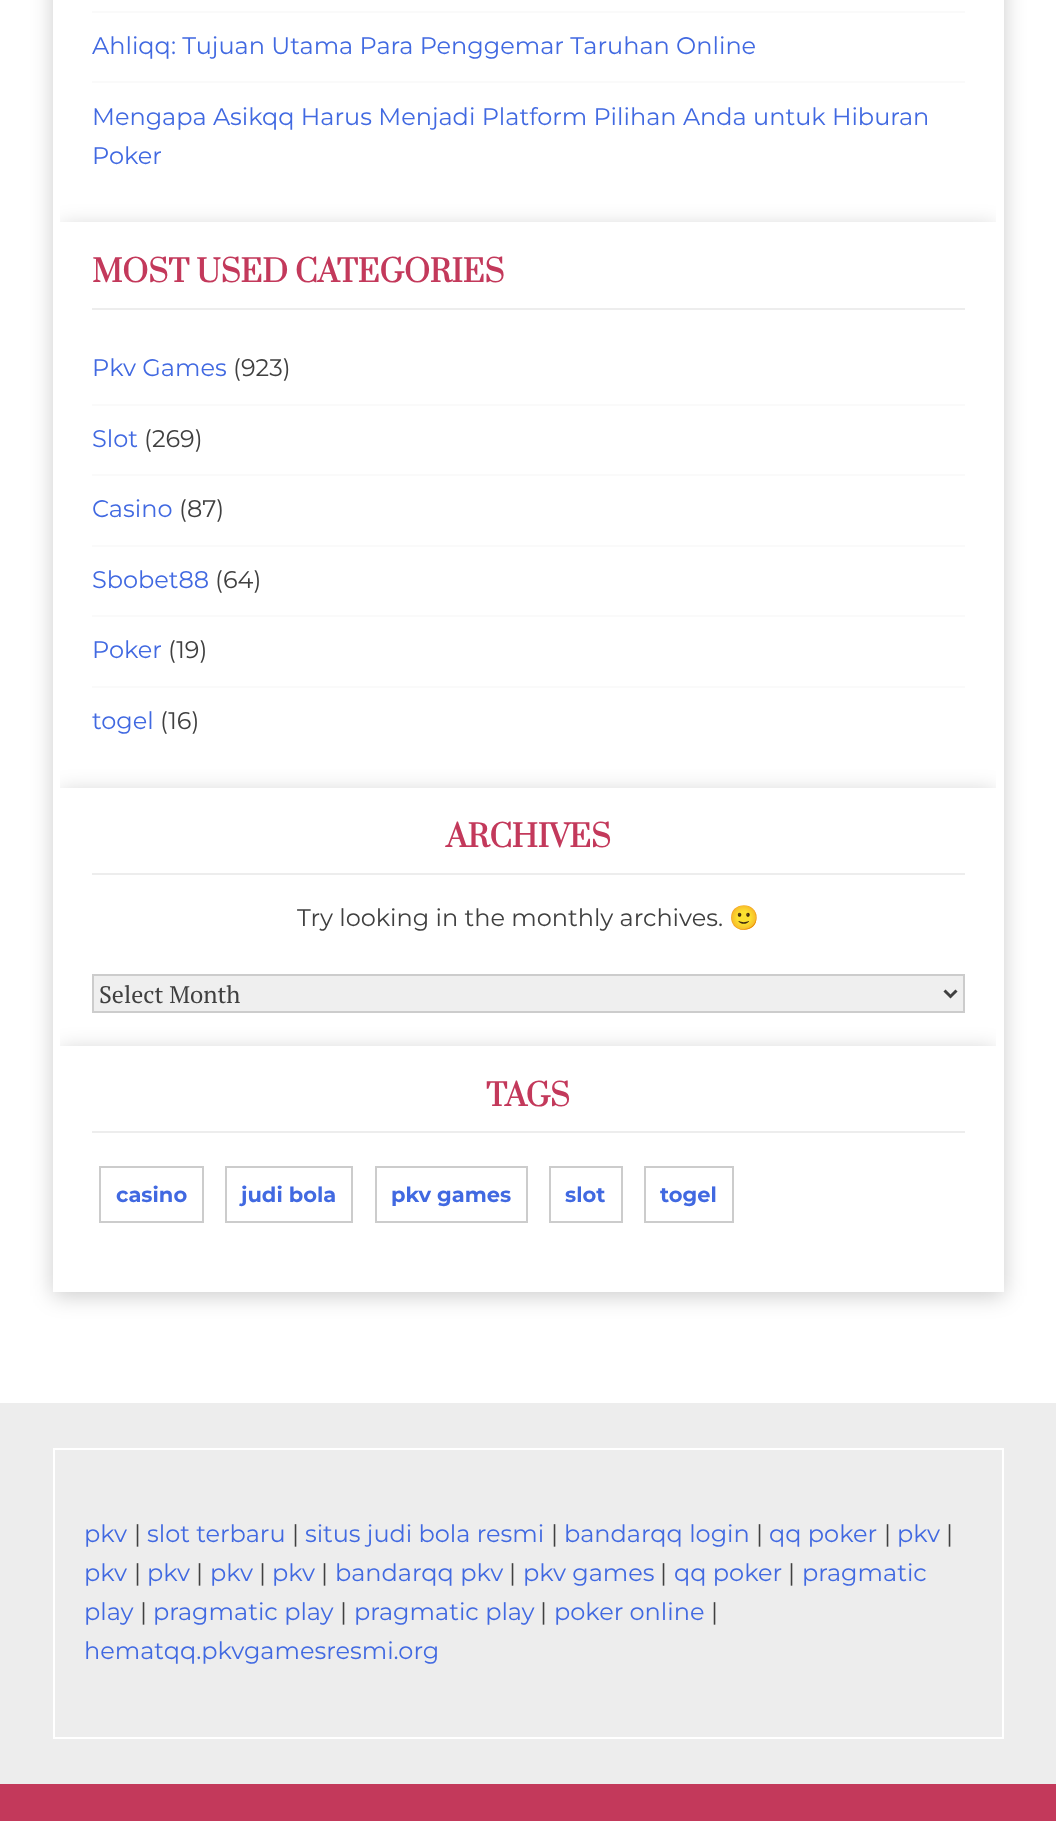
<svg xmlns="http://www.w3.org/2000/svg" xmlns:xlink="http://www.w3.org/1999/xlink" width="1056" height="1821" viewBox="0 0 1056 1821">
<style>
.cls-1{font:24px Montserrat;fill:#4169e1}
.cls-2{font:bold 30px Prata;fill:#c3395b}
.cls-3{font:24px Montserrat;fill:#404040}
.cls-4{font:24px Noto Color Emoji;fill:#404040}
.cls-5{font:24px PT Serif;fill:#404040}
.cls-6{font:bold 21px Montserrat;fill:#4169e1}
</style>
<defs>
<clipPath id="clip1"><rect x="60" y="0" width="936" height="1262"/></clipPath>
</defs>
<rect width="100%" height="100%" fill="#ffffff"/>
<rect fill="#000000" fill-opacity="0.2" filter="blur(11px)" x="53" y="-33" width="951" height="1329"/>
<rect fill="#ffffff" x="53" y="0" width="951" height="1292"/>
<rect fill="#fafafa" x="92" y="11" width="873" height="2"/>
<rect fill="#fafafa" x="92" y="81" width="873" height="2"/>
<g clip-path="url(#clip1)">
<rect fill="#000000" fill-opacity="0.2" filter="blur(11px)" x="60" y="227" width="936" height="565"/>
</g>
<rect fill="#ffffff" x="60" y="222" width="936" height="566"/>
<rect fill="#ededed" x="92" y="308" width="873" height="2"/>
<rect fill="#fafafa" x="92" y="404" width="873" height="2"/>
<rect fill="#fafafa" x="92" y="474" width="873" height="2"/>
<rect fill="#fafafa" x="92" y="545" width="873" height="2"/>
<rect fill="#fafafa" x="92" y="615" width="873" height="2"/>
<rect fill="#fafafa" x="92" y="686" width="873" height="2"/>
<g clip-path="url(#clip1)">
<rect fill="#000000" fill-opacity="0.2" filter="blur(11px)" x="60" y="792" width="936" height="258"/>
</g>
<rect fill="#ffffff" x="60" y="788" width="936" height="258"/>
<rect fill="#ededed" x="92" y="873" width="873" height="2"/>
<rect fill="#efefef" stroke="#cccccc" stroke-width="2" x="93" y="975" width="871" height="37"/>
<path fill="none" stroke="#404040" stroke-width="3" d="M944.5 990.5L950.5 996.5L956.5 990.5"/>
<g clip-path="url(#clip1)">
<rect fill="#000000" fill-opacity="0.2" filter="blur(11px)" x="60" y="1050" width="936" height="216"/>
</g>
<rect fill="#ffffff" x="60" y="1046" width="936" height="216"/>
<rect fill="#ededed" x="92" y="1131" width="873" height="2"/>
<rect fill="none" stroke="#cccccc" stroke-width="2" x="100" y="1167" width="103" height="55"/>
<rect fill="none" stroke="#cccccc" stroke-width="2" x="226" y="1167" width="126" height="55"/>
<rect fill="none" stroke="#cccccc" stroke-width="2" x="376" y="1167" width="151" height="55"/>
<rect fill="none" stroke="#cccccc" stroke-width="2" x="550" y="1167" width="72" height="55"/>
<rect fill="none" stroke="#cccccc" stroke-width="2" x="645" y="1167" width="88" height="55"/>
<rect fill="#ededed" x="0" y="1403" width="1056" height="381"/>
<rect fill="none" stroke="#ffffff" stroke-width="2" x="54" y="1449" width="949" height="289"/>
<rect fill="#c3395b" x="0" y="1784" width="1056" height="37"/>
<text class="cls-1" x="92" y="54">Ahliqq: Tujuan Utama Para Penggemar Taruhan Online</text>
<text class="cls-1"><tspan x="92" y="125">Mengapa Asikqq Harus Menjadi Platform Pilihan Anda untuk Hiburan</tspan><tspan x="92" y="164">Poker</tspan></text>
<text class="cls-2" x="92" y="282">MOST USED CATEGORIES</text>
<text class="cls-1" x="92" y="376">Pkv Games</text>
<text class="cls-3" x="233" y="376">(923)</text>
<text class="cls-1" x="92" y="447">Slot</text>
<text class="cls-3" x="144" y="447">(269)</text>
<text class="cls-1" x="92" y="517">Casino</text>
<text class="cls-3" x="179" y="517">(87)</text>
<text class="cls-1" x="92" y="588">Sbobet88</text>
<text class="cls-3" x="215" y="588">(64)</text>
<text class="cls-1" x="92" y="658">Poker</text>
<text class="cls-3" x="168" y="658">(19)</text>
<text class="cls-1" x="92" y="729">togel</text>
<text class="cls-3" x="160" y="729">(16)</text>
<text class="cls-2" x="446" y="847">ARCHIVES</text>
<text class="cls-3" x="297" y="926">Try looking in the monthly archives.</text>
<text class="cls-4" x="729" y="926">🙂</text>
<text class="cls-5" x="99" y="1003">Select Month</text>
<text class="cls-2" x="486" y="1106">TAGS</text>
<text class="cls-6" x="116" y="1202">casino</text>
<text class="cls-6" x="241" y="1202">judi bola</text>
<text class="cls-6" x="391" y="1202">pkv games</text>
<text class="cls-6" x="565" y="1202">slot</text>
<text class="cls-6" x="660" y="1202">togel</text>
<text class="cls-1" x="84" y="1542">pkv</text>
<text class="cls-3" x="134" y="1542">|</text>
<text class="cls-1" x="147" y="1542">slot terbaru</text>
<text class="cls-3" x="292" y="1542">|</text>
<text class="cls-1" x="305" y="1542">situs judi bola resmi</text>
<text class="cls-3" x="551" y="1542">|</text>
<text class="cls-1" x="564" y="1542">bandarqq login</text>
<text class="cls-3" x="756" y="1542">|</text>
<text class="cls-1" x="769" y="1542">qq poker</text>
<text class="cls-3" x="884" y="1542">|</text>
<text class="cls-1" x="897" y="1542">pkv</text>
<text class="cls-3" x="946" y="1542">|</text>
<text class="cls-1" x="84" y="1581">pkv</text>
<text class="cls-3" x="134" y="1581">|</text>
<text class="cls-1" x="147" y="1581">pkv</text>
<text class="cls-3" x="196" y="1581">|</text>
<text class="cls-1" x="210" y="1581">pkv</text>
<text class="cls-3" x="259" y="1581">|</text>
<text class="cls-1" x="272" y="1581">pkv</text>
<text class="cls-3" x="321" y="1581">|</text>
<text class="cls-1" x="335" y="1581">bandarqq pkv</text>
<text class="cls-3" x="509" y="1581">|</text>
<text class="cls-1" x="523" y="1581">pkv games</text>
<text class="cls-3" x="660" y="1581">|</text>
<text class="cls-1" x="674" y="1581">qq poker</text>
<text class="cls-3" x="788" y="1581">|</text>
<text class="cls-1" x="802" y="1581">pragmatic</text>
<text class="cls-1" x="84" y="1620">play</text>
<text class="cls-3" x="140" y="1620">|</text>
<text class="cls-1" x="153" y="1620">pragmatic play</text>
<text class="cls-3" x="340" y="1620">|</text>
<text class="cls-1" x="354" y="1620">pragmatic play</text>
<text class="cls-3" x="540" y="1620">|</text>
<text class="cls-1" x="554" y="1620">poker online</text>
<text class="cls-3" x="711" y="1620">|</text>
<text class="cls-1" x="84" y="1659">hematqq.pkvgamesresmi.org</text>
</svg>
